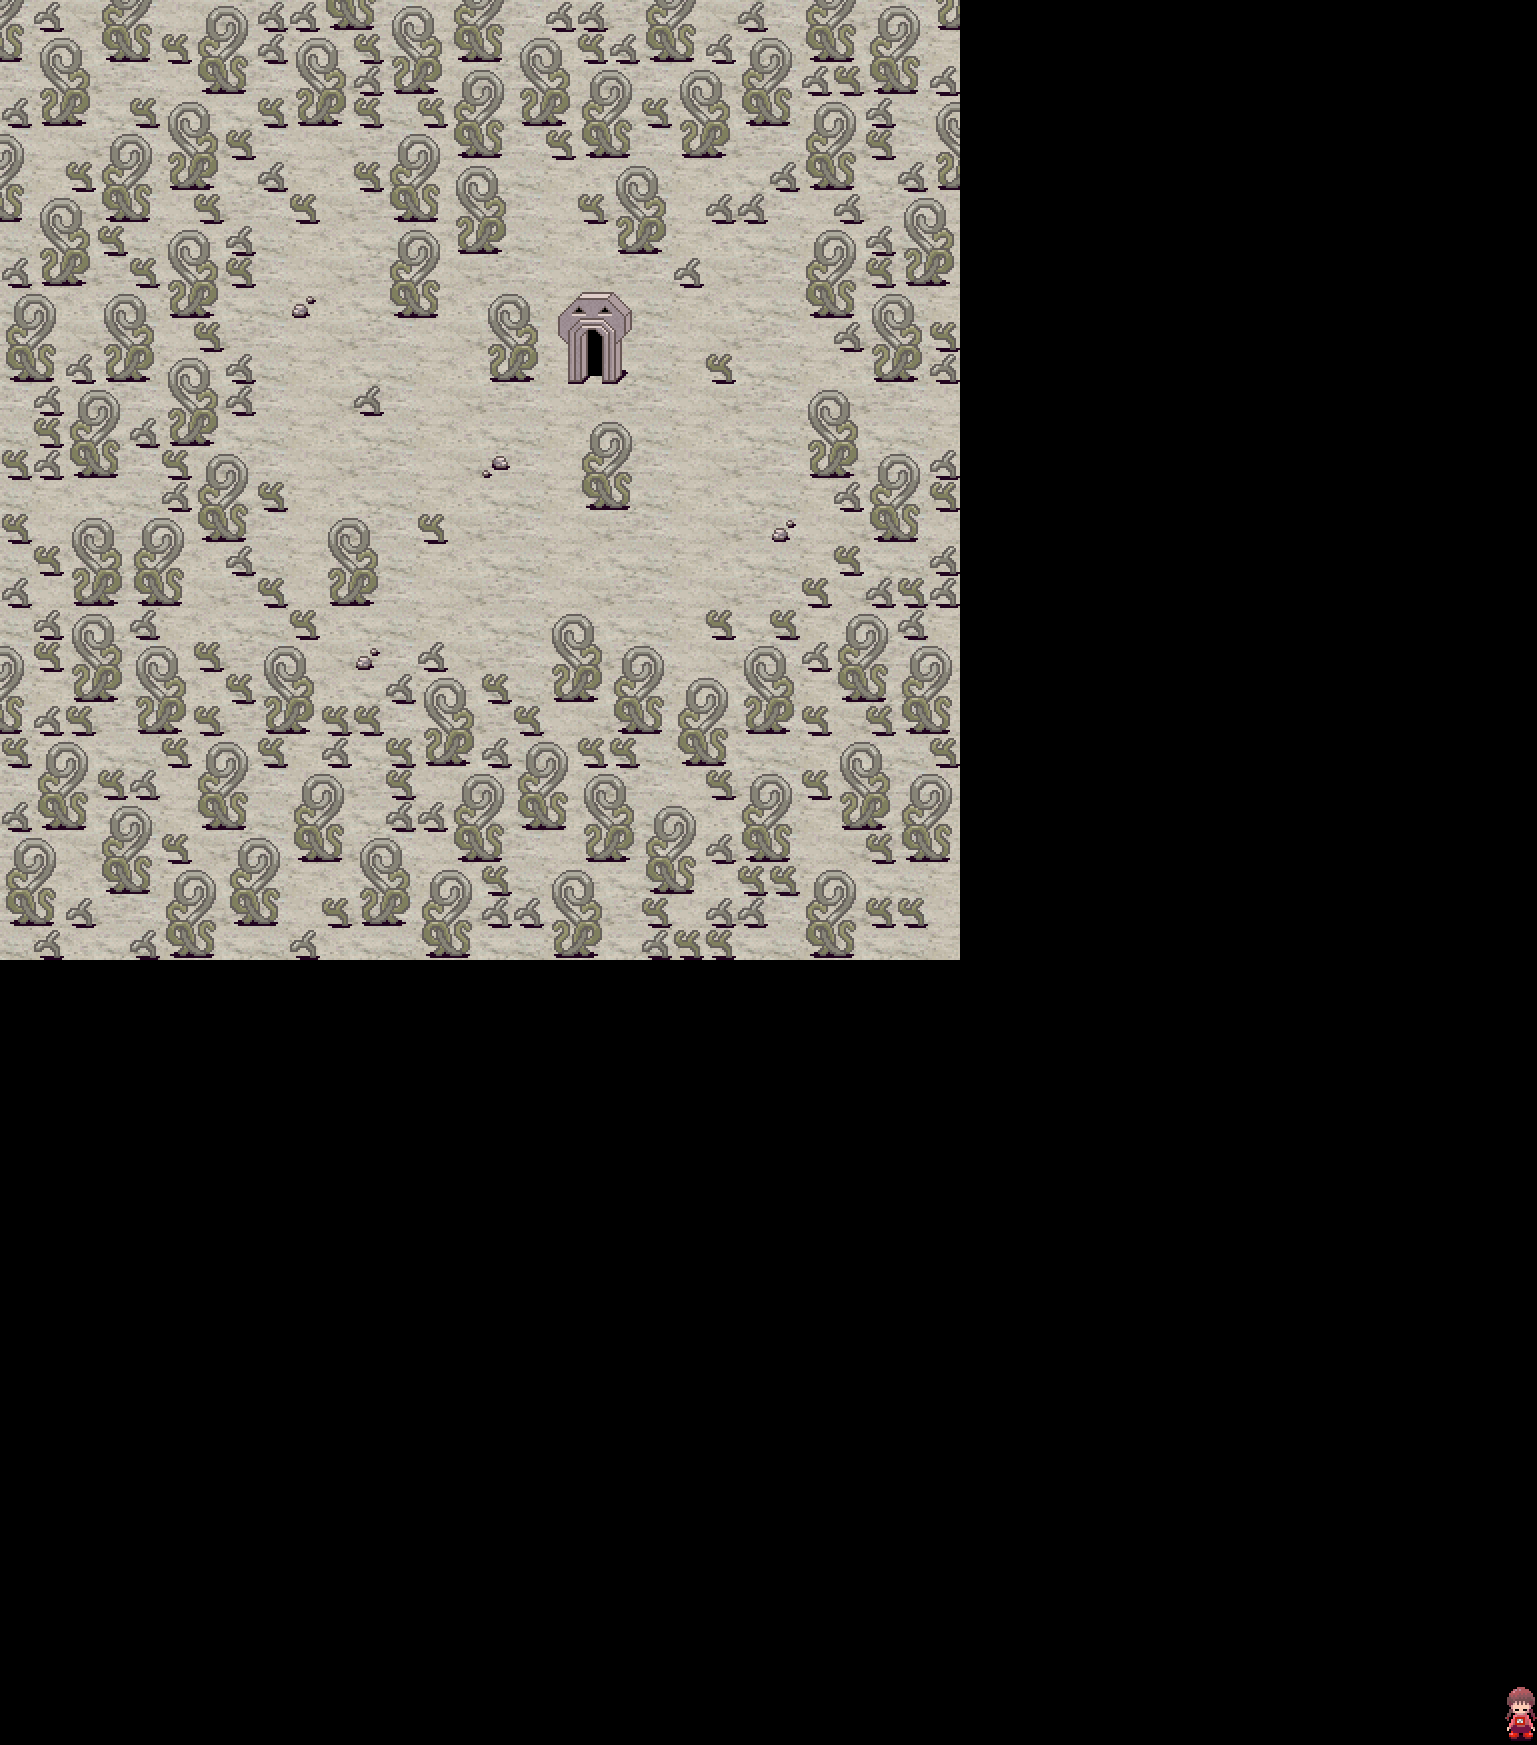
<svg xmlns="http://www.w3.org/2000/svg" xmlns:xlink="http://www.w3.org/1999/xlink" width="1537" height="1745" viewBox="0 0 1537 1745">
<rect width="100%" height="100%" fill="#000000"/>
<image xlink:href="image0.png" x="0" y="0" width="960" height="960"/>
<image xlink:href="image1.png" x="1505" y="1687" width="32" height="54"/>
</svg>
